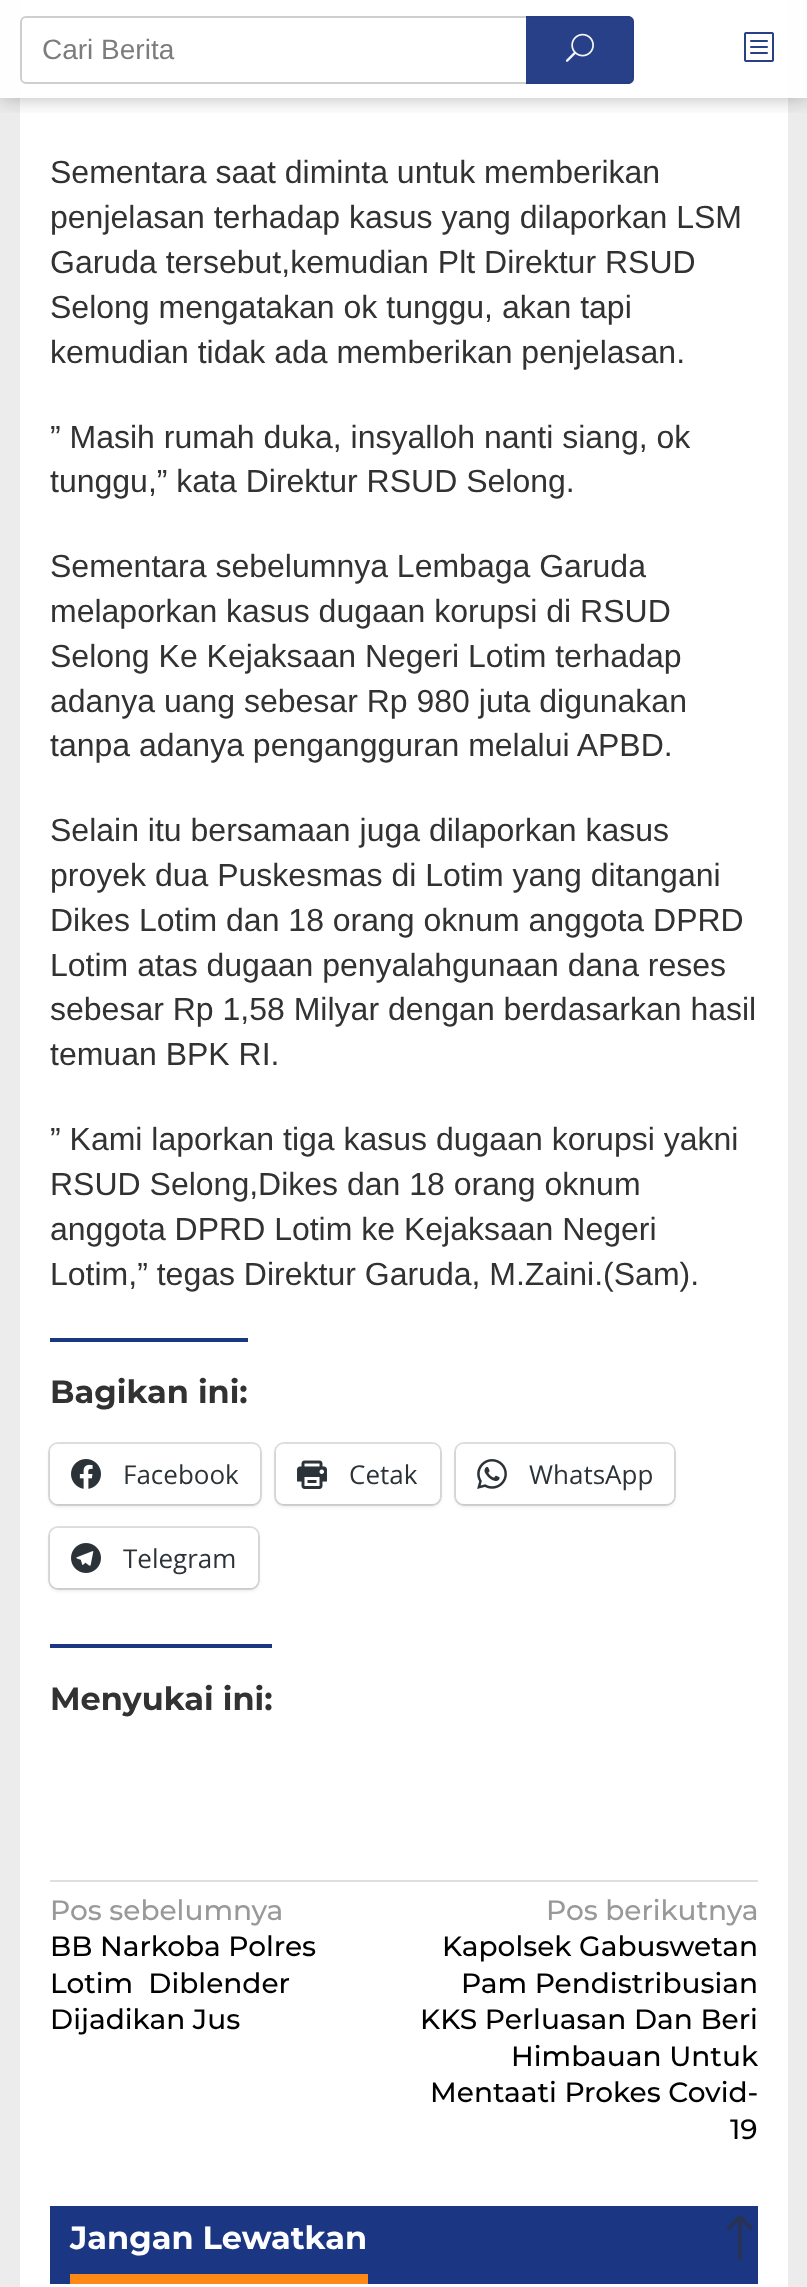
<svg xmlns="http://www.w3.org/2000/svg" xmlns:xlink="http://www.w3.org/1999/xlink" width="807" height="2287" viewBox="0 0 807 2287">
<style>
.cls-1{font:28px Liberation Sans;fill:#7c7c7c}
.cls-2{font:32px Liberation Sans;fill:#323233}
.cls-3{font:bold 32px Montserrat;fill:#323233}
.cls-4{font:26px Open Sans;fill:#2c3338}
.cls-5{font:500 28px Montserrat;fill:#999999}
.cls-6{font:500 28px Montserrat;fill:#000000}
.cls-7{font:bold 32px Montserrat;fill:#ffffff}
</style>
<defs>
<clipPath id="clip1"><rect x="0" y="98" width="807" height="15"/></clipPath>
</defs>
<rect width="100%" height="100%" fill="#ececec"/>
<rect fill="#ffffff" x="20" y="0" width="768" height="2287"/>
<g clip-path="url(#clip1)">
<rect fill="#000000" fill-opacity="0.28" filter="blur(10px)" x="0" y="0" width="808" height="98"/>
</g>
<rect fill="#ffffff" fill-opacity="0.95" x="0" y="0" width="807" height="98"/>
<rect fill="none" stroke="#000000" stroke-opacity="0.19" stroke-width="2" x="21" y="17" width="612" height="66" rx="5"/>
<path fill="#1b3682" fill-opacity="0.95" d="M526 16H628C631.5 16 634 18.5 634 22V78C634 81.5 631.5 84 628 84H526Z"/>
<image xlink:href="image0.png" x="565" y="33" width="29" height="29"/>
<image xlink:href="image1.png" x="744" y="32" width="30" height="30"/>
<rect fill="#1b3682" x="50" y="1338" width="198" height="4"/>
<rect fill="none" stroke="#e0e0e0" stroke-width="2" x="49" y="1443" width="212" height="62" rx="9"/>
<rect fill="#000000" fill-opacity="0.12" filter="blur(2px)" x="50" y="1446" width="210" height="60" rx="8"/>
<rect fill="#ffffff" x="50" y="1444" width="210" height="60" rx="8"/>
<image xlink:href="image2.png" x="71" y="1459" width="30" height="30"/>
<rect fill="none" stroke="#e0e0e0" stroke-width="2" x="275" y="1443" width="166" height="62" rx="9"/>
<rect fill="#000000" fill-opacity="0.12" filter="blur(2px)" x="276" y="1446" width="164" height="60" rx="8"/>
<rect fill="#ffffff" x="276" y="1444" width="164" height="60" rx="8"/>
<image xlink:href="image3.png" x="297" y="1460" width="30" height="29"/>
<rect fill="none" stroke="#e0e0e0" stroke-width="2" x="455" y="1443" width="220" height="62" rx="9"/>
<rect fill="#000000" fill-opacity="0.12" filter="blur(2px)" x="456" y="1446" width="218" height="60" rx="8"/>
<rect fill="#ffffff" x="456" y="1444" width="218" height="60" rx="8"/>
<image xlink:href="image4.png" x="477" y="1459" width="30" height="30"/>
<rect fill="none" stroke="#e0e0e0" stroke-width="2" x="49" y="1527" width="210" height="62" rx="9"/>
<rect fill="#000000" fill-opacity="0.12" filter="blur(2px)" x="50" y="1530" width="208" height="60" rx="8"/>
<rect fill="#ffffff" x="50" y="1528" width="208" height="60" rx="8"/>
<image xlink:href="image5.png" x="71" y="1543" width="30" height="30"/>
<rect fill="#1b3682" x="50" y="1644" width="222" height="4"/>
<rect fill="#dfdfdf" x="50" y="1880" width="708" height="2"/>
<rect fill="#1b3682" x="50" y="2206" width="708" height="78"/>
<rect fill="#fe8917" x="70" y="2274" width="298" height="10"/>
<image xlink:href="image6.png" x="726" y="2215" width="27" height="46"/>
<text class="cls-1" x="42" y="59">Cari Berita</text>
<text class="cls-2"><tspan x="50" y="183">Sementara saat diminta untuk memberikan</tspan><tspan x="50" y="228">penjelasan terhadap kasus yang dilaporkan LSM</tspan><tspan x="50" y="273">Garuda tersebut,kemudian Plt Direktur RSUD</tspan><tspan x="50" y="318">Selong mengatakan ok tunggu, akan tapi</tspan><tspan x="50" y="363">kemudian tidak ada memberikan penjelasan.</tspan></text>
<text class="cls-2"><tspan x="50" y="448">” Masih rumah duka, insyalloh nanti siang, ok</tspan><tspan x="50" y="492">tunggu,” kata Direktur RSUD Selong.</tspan></text>
<text class="cls-2"><tspan x="50" y="577">Sementara sebelumnya Lembaga Garuda</tspan><tspan x="50" y="622">melaporkan kasus dugaan korupsi di RSUD</tspan><tspan x="50" y="667">Selong Ke Kejaksaan Negeri Lotim terhadap</tspan><tspan x="50" y="712">adanya uang sebesar Rp 980 juta digunakan</tspan><tspan x="50" y="756">tanpa adanya pengangguran melalui APBD.</tspan></text>
<text class="cls-2"><tspan x="50" y="841">Selain itu bersamaan juga dilaporkan kasus</tspan><tspan x="50" y="886">proyek dua Puskesmas di Lotim yang ditangani</tspan><tspan x="50" y="931">Dikes Lotim dan 18 orang oknum anggota DPRD</tspan><tspan x="50" y="976">Lotim atas dugaan penyalahgunaan dana reses</tspan><tspan x="50" y="1020">sebesar Rp 1,58 Milyar dengan berdasarkan hasil</tspan><tspan x="50" y="1065">temuan BPK RI.</tspan></text>
<text class="cls-2"><tspan x="50" y="1150">” Kami laporkan tiga kasus dugaan korupsi yakni</tspan><tspan x="50" y="1195">RSUD Selong,Dikes dan 18 orang oknum</tspan><tspan x="50" y="1240">anggota DPRD Lotim ke Kejaksaan Negeri</tspan><tspan x="50" y="1285">Lotim,” tegas Direktur Garuda, M.Zaini.(Sam).</tspan></text>
<text class="cls-3" x="50" y="1403">Bagikan ini:</text>
<text class="cls-4" x="123" y="1484">Facebook</text>
<text class="cls-4" x="349" y="1484">Cetak</text>
<text class="cls-4" x="529" y="1484">WhatsApp</text>
<text class="cls-4" x="123" y="1568">Telegram</text>
<text class="cls-3" x="50" y="1710">Menyukai ini:</text>
<text class="cls-5" x="50" y="1920">Pos sebelumnya</text>
<text class="cls-6" xml:space="preserve"><tspan x="50" y="1956">BB Narkoba Polres</tspan><tspan x="50" y="1993">Lotim  Diblender</tspan><tspan x="50" y="2029">Dijadikan Jus</tspan></text>
<text class="cls-5" x="546" y="1920">Pos berikutnya</text>
<text class="cls-6" x="442" y="1956">Kapolsek Gabuswetan</text>
<text class="cls-6" x="461" y="1993">Pam Pendistribusian</text>
<text class="cls-6" x="420" y="2029">KKS Perluasan Dan Beri</text>
<text class="cls-6" x="511" y="2066">Himbauan Untuk</text>
<text class="cls-6" x="430" y="2102">Mentaati Prokes Covid-</text>
<text class="cls-6" x="730" y="2139">19</text>
<text class="cls-7" x="70" y="2249">Jangan Lewatkan</text>
</svg>
